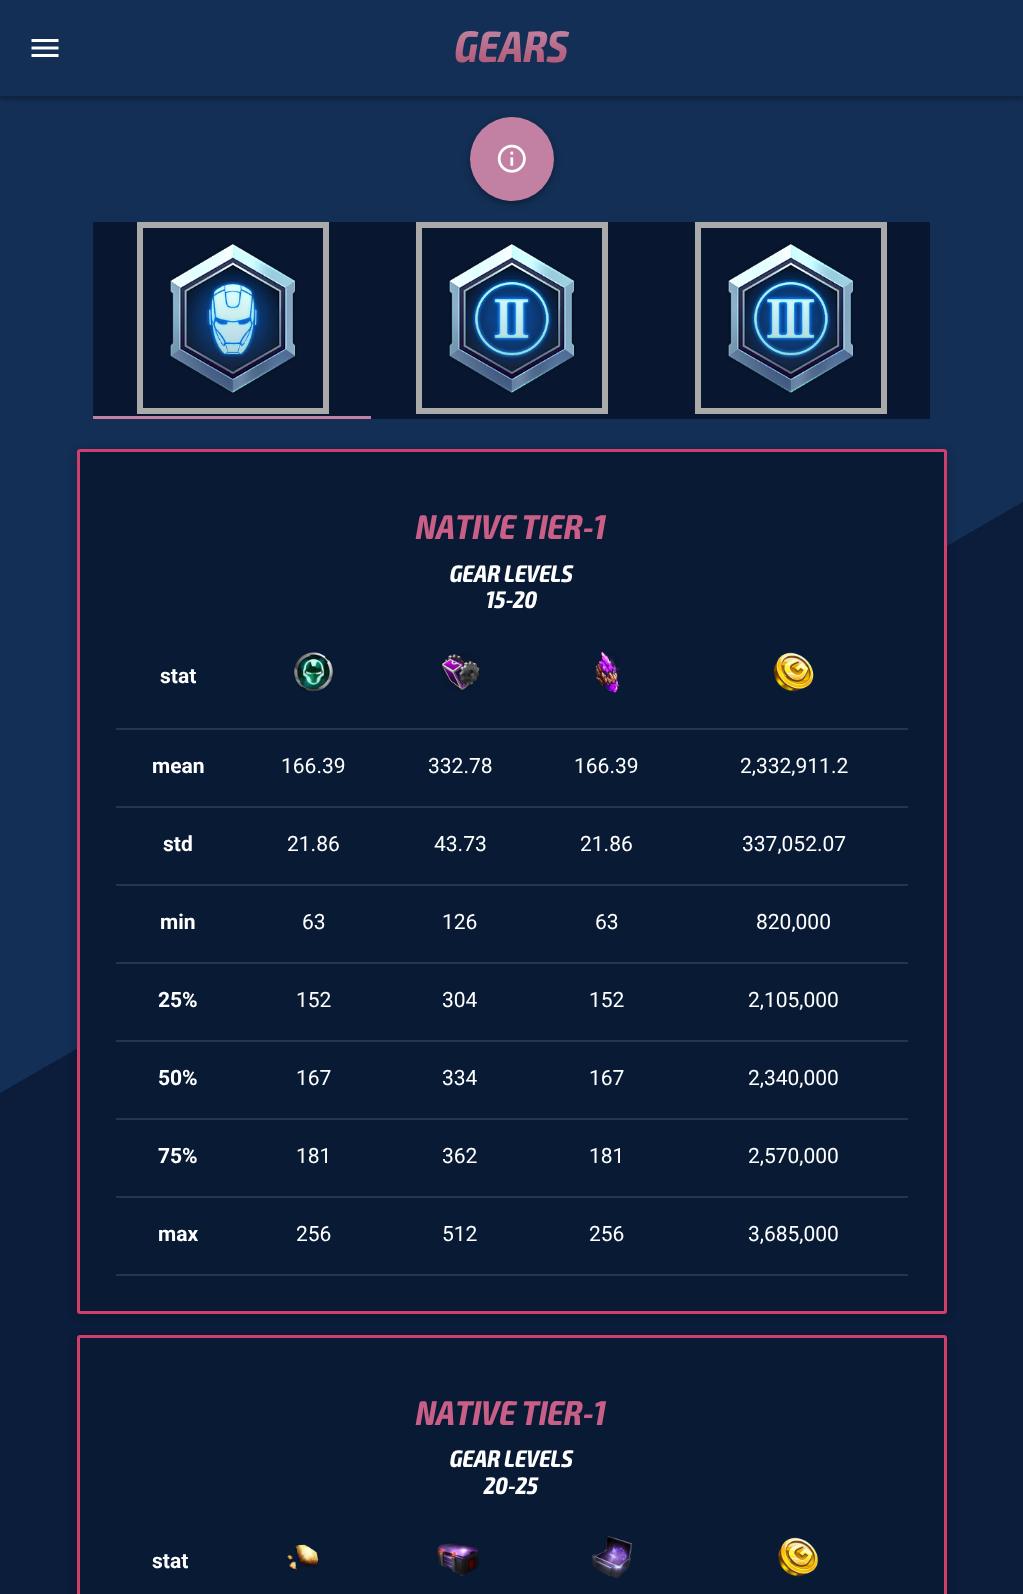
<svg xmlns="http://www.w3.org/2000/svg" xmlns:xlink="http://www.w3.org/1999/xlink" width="1023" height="1594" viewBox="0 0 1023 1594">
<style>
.cls-1{font:bold 44px 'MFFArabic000';fill:url(#g2)}
.cls-2{font:bold 34.5px 'MFFArabic000';fill:#c95f87}
.cls-3{font:bold 24px 'MFFArabic000';fill:#ffffff}
.cls-4{font:bold 21px Roboto;fill:#ffffff}
.cls-5{font:21px Roboto;fill:#ffffff}
</style>
<defs>
<linearGradient id="g1" gradientUnits="userSpaceOnUse" x1="38" y1="-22" x2="985" y2="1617"><stop offset="0.5" stop-color="#132f55"/><stop offset="0.5" stop-color="#0b1d3b"/></linearGradient>
<clipPath id="clip1"><rect x="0" y="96" width="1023" height="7"/></clipPath>
<clipPath id="clip2"><rect x="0" y="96" width="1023" height="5"/></clipPath>
<linearGradient id="g2" gradientUnits="userSpaceOnUse" x1="511" y1="0" x2="511" y2="96"><stop offset="0" stop-color="#cba6bf"/><stop offset="1" stop-color="#a63155"/></linearGradient>
</defs>
<rect width="100%" height="100%" fill="#ffffff"/>
<rect fill="url(#g1)" x="0" y="0" width="1023" height="1594"/>
<g clip-path="url(#clip1)">
<rect fill="#000000" fill-opacity="0.2" filter="blur(4px)" x="0" y="2" width="1023" height="96"/>
</g>
<g clip-path="url(#clip2)">
<rect fill="#000000" fill-opacity="0.14" filter="blur(1.5px)" x="0" y="3" width="1023" height="96"/>
</g>
<image xlink:href="image0.png" x="31" y="39" width="28" height="18"/>
<rect fill="#000000" fill-opacity="0.2" filter="blur(4px)" x="470" y="119" width="84" height="84" rx="42"/>
<rect fill="#000000" fill-opacity="0.14" filter="blur(1.5px)" x="470" y="120" width="84" height="84" rx="42"/>
<circle fill="#c280a2" cx="512" cy="159" r="42"/>
<image xlink:href="image1.png" x="497" y="144" width="29" height="29"/>
<rect fill="#08172f" x="93" y="222" width="837" height="197"/>
<rect fill="none" stroke="#aaaaaa" stroke-width="6" x="140" y="225" width="186" height="186"/>
<image xlink:href="image2.png" x="169" y="243" width="128" height="151"/>
<rect fill="none" stroke="#aaaaaa" stroke-width="6" x="419" y="225" width="186" height="186"/>
<image xlink:href="image3.png" x="448" y="243" width="128" height="151"/>
<rect fill="none" stroke="#aaaaaa" stroke-width="6" x="698" y="225" width="186" height="186"/>
<image xlink:href="image4.png" x="727" y="243" width="128" height="151"/>
<rect fill="#c280a2" x="93" y="416" width="278" height="3"/>
<rect fill="#000000" fill-opacity="0.2" filter="blur(4px)" x="77" y="450" width="870" height="866" rx="3"/>
<rect fill="#091a35" stroke="#d03e6b" stroke-width="3" x="78.5" y="450.5" width="867" height="862" rx="1.5"/>
<rect fill="#27354d" x="116" y="728" width="792" height="2"/>
<image xlink:href="image5.png" x="294" y="652" width="40" height="40"/>
<image xlink:href="image6.png" x="441" y="653" width="39" height="38"/>
<image xlink:href="image7.png" x="595" y="651" width="26" height="42"/>
<image xlink:href="image8.png" x="773" y="652" width="41" height="40"/>
<rect fill="#27354d" x="116" y="806" width="792" height="2"/>
<rect fill="#27354d" x="116" y="884" width="792" height="2"/>
<rect fill="#27354d" x="116" y="962" width="792" height="2"/>
<rect fill="#27354d" x="116" y="1040" width="792" height="2"/>
<rect fill="#27354d" x="116" y="1118" width="792" height="2"/>
<rect fill="#27354d" x="116" y="1196" width="792" height="2"/>
<rect fill="#27354d" x="116" y="1274" width="792" height="2"/>
<rect fill="#000000" fill-opacity="0.2" filter="blur(4px)" x="77" y="1337" width="870" height="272" rx="3"/>
<rect fill="#091a35" stroke="#d03e6b" stroke-width="3" x="78.5" y="1336.5" width="867" height="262" rx="1.5"/>
<image xlink:href="image9.png" x="287" y="1544" width="32" height="27"/>
<image xlink:href="image10.png" x="436" y="1542" width="43" height="35"/>
<image xlink:href="image11.png" x="592" y="1536" width="41" height="43"/>
<image xlink:href="image12.png" x="778" y="1537" width="41" height="40"/>
<text class="cls-1" x="455" y="62">GEARS</text>
<text class="cls-2" x="416" y="539">NATIVE TIER-1</text>
<text class="cls-3" x="450" y="582">GEAR LEVELS</text>
<text class="cls-3" x="486" y="608">15-20</text>
<text class="cls-4" x="160" y="683">stat</text>
<text class="cls-4" x="152" y="773">mean</text>
<text class="cls-5" x="281" y="773">166.39</text>
<text class="cls-5" x="428" y="773">332.78</text>
<text class="cls-5" x="574" y="773">166.39</text>
<text class="cls-5" x="740" y="773">2,332,911.2</text>
<text class="cls-4" x="163" y="851">std</text>
<text class="cls-5" x="287" y="851">21.86</text>
<text class="cls-5" x="434" y="851">43.73</text>
<text class="cls-5" x="580" y="851">21.86</text>
<text class="cls-5" x="742" y="851">337,052.07</text>
<text class="cls-4" x="160" y="929">min</text>
<text class="cls-5" x="302" y="929">63</text>
<text class="cls-5" x="442" y="929">126</text>
<text class="cls-5" x="595" y="929">63</text>
<text class="cls-5" x="756" y="929">820,000</text>
<text class="cls-4" x="158" y="1007">25%</text>
<text class="cls-5" x="296" y="1007">152</text>
<text class="cls-5" x="442" y="1007">304</text>
<text class="cls-5" x="589" y="1007">152</text>
<text class="cls-5" x="748" y="1007">2,105,000</text>
<text class="cls-4" x="158" y="1085">50%</text>
<text class="cls-5" x="296" y="1085">167</text>
<text class="cls-5" x="442" y="1085">334</text>
<text class="cls-5" x="589" y="1085">167</text>
<text class="cls-5" x="748" y="1085">2,340,000</text>
<text class="cls-4" x="158" y="1163">75%</text>
<text class="cls-5" x="296" y="1163">181</text>
<text class="cls-5" x="442" y="1163">362</text>
<text class="cls-5" x="589" y="1163">181</text>
<text class="cls-5" x="748" y="1163">2,570,000</text>
<text class="cls-4" x="158" y="1241">max</text>
<text class="cls-5" x="296" y="1241">256</text>
<text class="cls-5" x="442" y="1241">512</text>
<text class="cls-5" x="589" y="1241">256</text>
<text class="cls-5" x="748" y="1241">3,685,000</text>
<text class="cls-2" x="416" y="1425">NATIVE TIER-1</text>
<text class="cls-3" x="450" y="1467">GEAR LEVELS</text>
<text class="cls-3" x="484" y="1494">20-25</text>
<text class="cls-4" x="152" y="1568">stat</text>
</svg>
